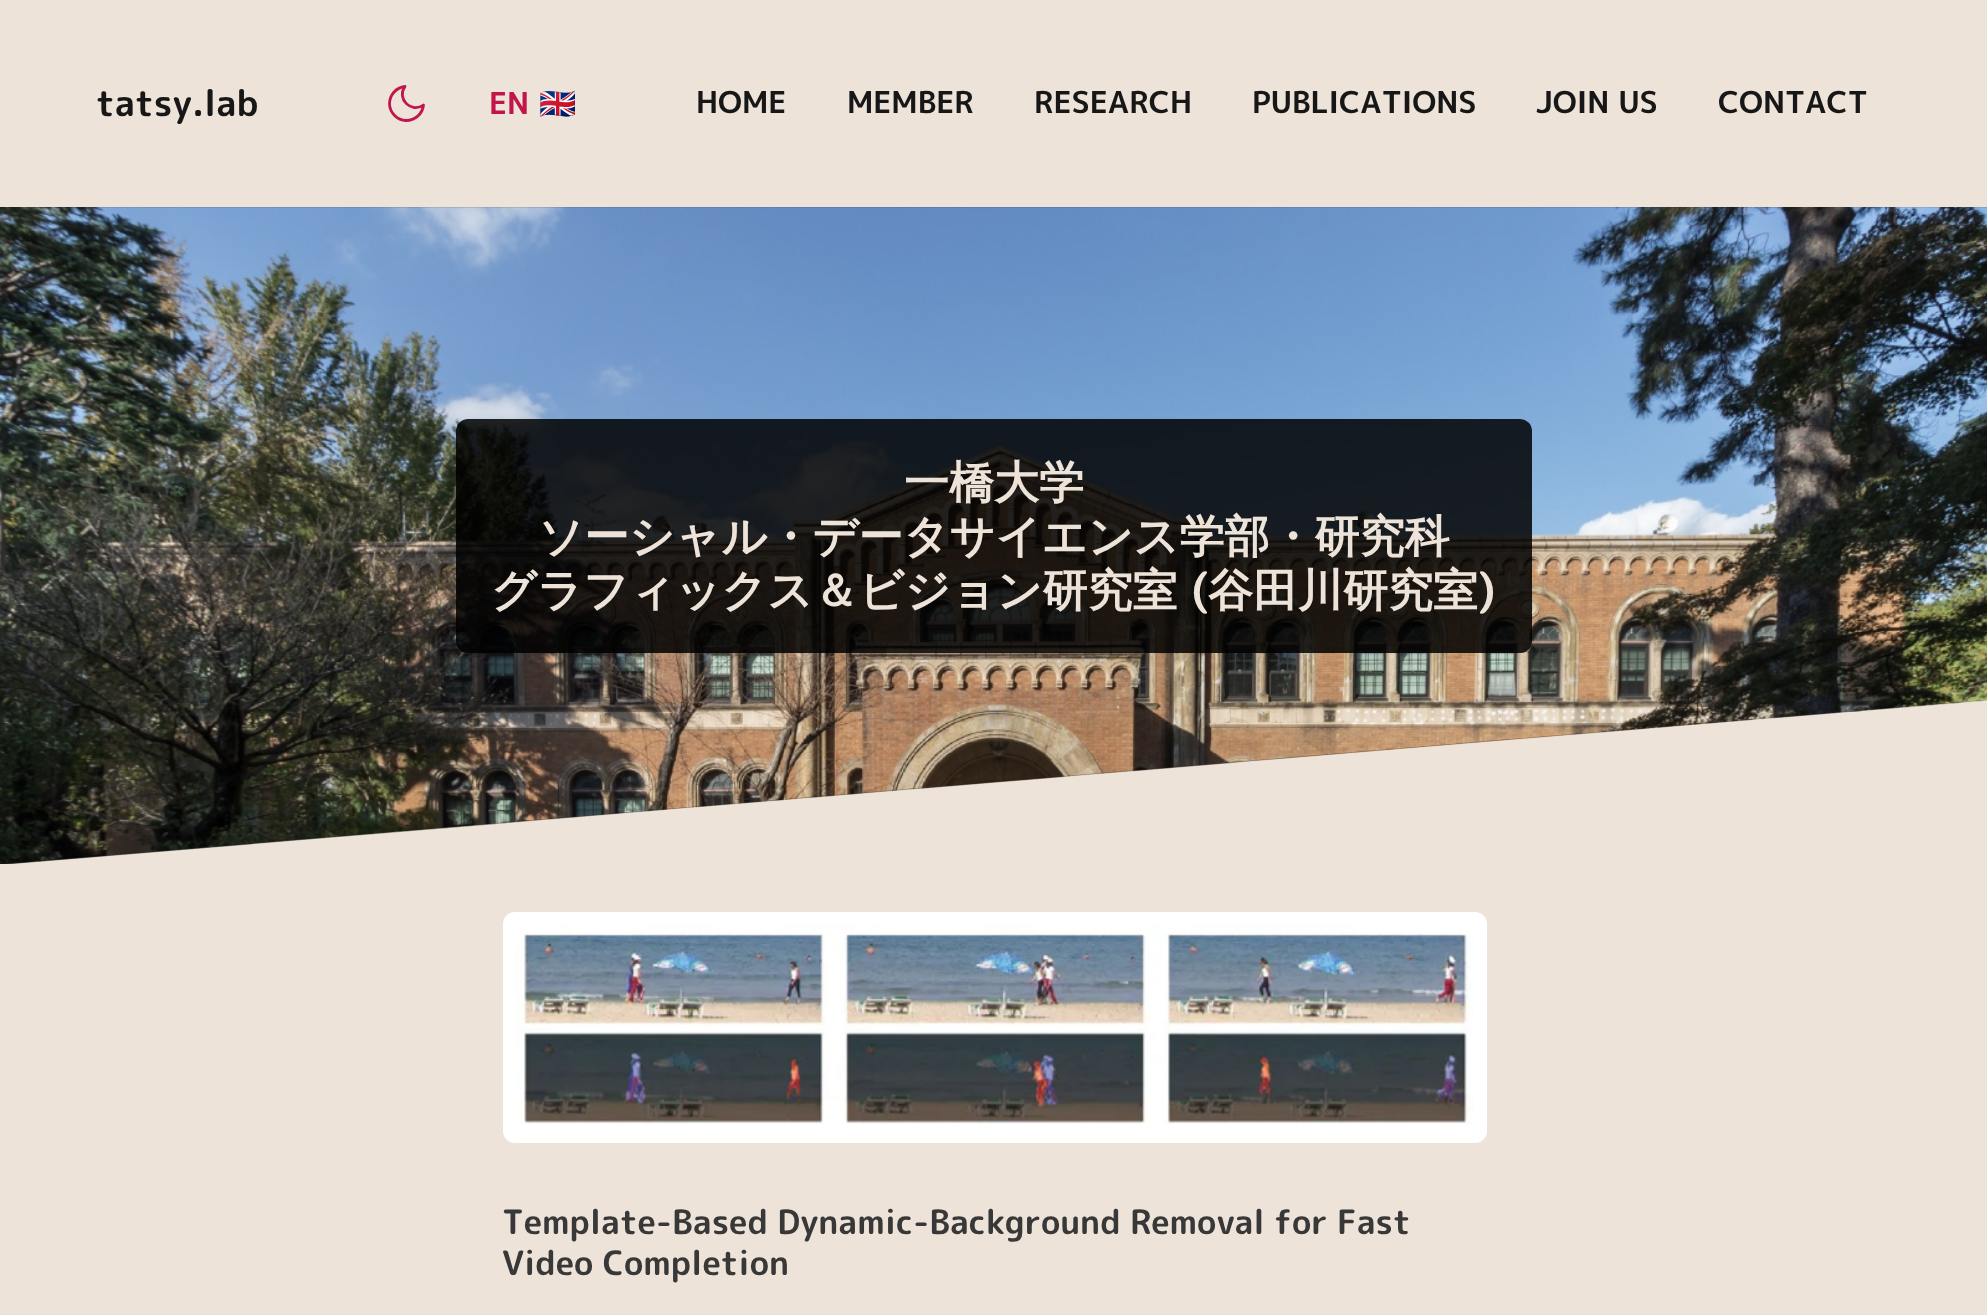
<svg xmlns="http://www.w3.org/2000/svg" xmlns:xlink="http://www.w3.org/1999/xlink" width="1987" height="1315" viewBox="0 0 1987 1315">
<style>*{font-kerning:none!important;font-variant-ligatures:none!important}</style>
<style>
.cls-1{font:bold 36px 'Rounded Mplus 1c Bold';fill:#171717}
.cls-2{font:bold 30px 'M PLUS 1p';fill:#c1154c}
.cls-3{font:bold 30px Noto Color Emoji;fill:#c1154c}
.cls-4{font:bold 30px 'M PLUS 1p';fill:#171717}
.cls-5{font:bold 45px WenQuanYi Zen Hei;fill:#ede3d9}
.cls-6{font:bold 45px 'Rounded Mplus 1c Bold';fill:#ede3d9}
.cls-7{font:bold 33.6px 'Rounded Mplus 1c Bold';fill:#383838}
</style>
<rect width="100%" height="100%" fill="#ede3d9"/>
<path fill="none" stroke="#c1154c" stroke-width="2.8" stroke-linecap="round" stroke-linejoin="round" d="M423.5 105C422.5 114 415 120.5 406 120.5C397 120 390 113 389.5 104C389.5 95 396 87.5 405 86.5C396 98.5 411.5 114 423.5 105Z"/>
<path fill="#303030" d="M0 207V864H7L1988 700V207Z"/>
<image xlink:href="image0.png" x="0" y="207" width="1987" height="657"/>
<rect fill="#000000" fill-opacity="0.85" x="456" y="419" width="1076" height="234" rx="12"/>
<rect fill="#ffffff" x="503" y="912" width="984" height="231" rx="12"/>
<image xlink:href="image1.png" x="515" y="924" width="959" height="201"/>
<text class="cls-1" x="96" y="116">tatsy.lab</text>
<text class="cls-2" x="489" y="114">EN</text>
<text class="cls-3" x="539" y="114">🇬🇧</text>
<text class="cls-4" x="696" y="113">HOME</text>
<text class="cls-4" x="847" y="113">MEMBER</text>
<text class="cls-4" x="1034" y="113">RESEARCH</text>
<text class="cls-4" x="1252" y="113">PUBLICATIONS</text>
<text class="cls-4" x="1536" y="113">JOIN US</text>
<text class="cls-4" x="1718" y="113">CONTACT</text>
<text class="cls-5" x="904" y="498">一橋大学</text>
<text class="cls-5" x="538" y="552">ソーシャル・データサイエンス学部・研究科</text>
<text class="cls-5" x="491" y="606">グラフィックス＆ビジョン研究室</text>
<text class="cls-6" x="1191" y="606">(</text>
<text class="cls-5" x="1208" y="606">谷田川研究室</text>
<text class="cls-6" x="1478" y="606">)</text>
<text class="cls-7" x="502" y="1234">Template-Based Dynamic-Background</text>
<text class="cls-7" x="1130" y="1234">Removal for Fast</text>
<text class="cls-7" x="502" y="1275">Video Completion</text>
</svg>
